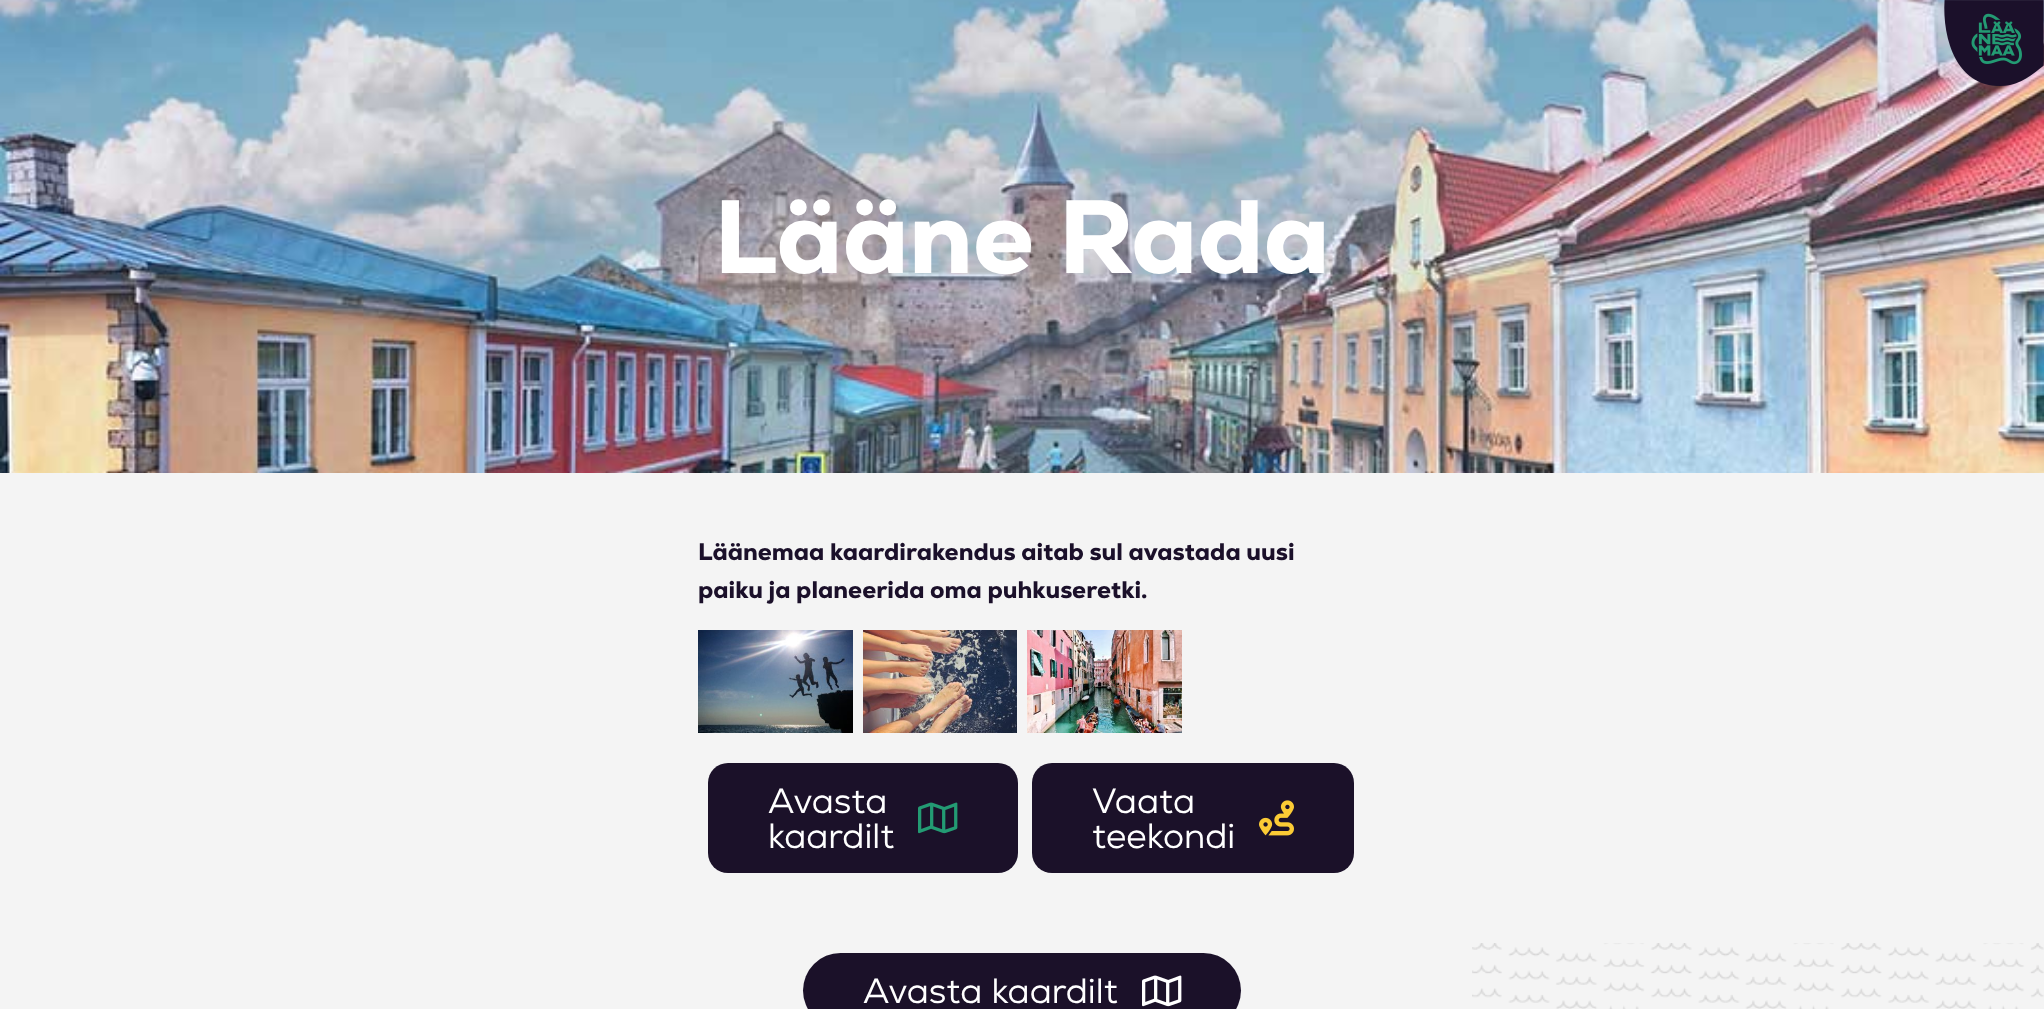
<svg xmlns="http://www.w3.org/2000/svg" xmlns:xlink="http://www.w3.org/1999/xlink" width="2044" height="1009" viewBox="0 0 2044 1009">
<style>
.cls-1{font:900 104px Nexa;fill:#ffffff}
.cls-2{font:900 24px Nexa;fill:#1b102a}
.cls-3{font:35px Nexa;fill:#ffffff}
</style>
<rect width="100%" height="100%" fill="#f4f4f4"/>
<image xlink:href="image1.png" x="0" y="0" width="2044" height="473"/>
<image xlink:href="image0.png" x="1944" y="0" width="100" height="86"/>
<image xlink:href="image2.png" x="698" y="630" width="155" height="103"/>
<image xlink:href="image3.png" x="863" y="630" width="154" height="103"/>
<image xlink:href="image4.png" x="1027" y="630" width="155" height="103"/>
<rect fill="#1b1129" x="708" y="763" width="310" height="110" rx="20"/>
<image xlink:href="image5.png" x="918" y="802" width="40" height="32"/>
<rect fill="#1b1129" x="1032" y="763" width="322" height="110" rx="20"/>
<image xlink:href="image6.png" x="1259" y="800" width="35" height="36"/>
<image xlink:href="image7.png" x="1472" y="943" width="572" height="66"/>
<rect fill="#1b1129" x="803" y="953" width="438" height="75" rx="37.5"/>
<image xlink:href="image8.png" x="1142" y="975" width="40" height="32"/>
<text class="cls-1" x="714" y="273">Lääne Rada</text>
<text class="cls-2"><tspan x="698" y="560">Läänemaa kaardirakendus aitab sul avastada uusi</tspan><tspan x="698" y="598">paiku ja planeerida oma puhkuseretki.</tspan></text>
<text class="cls-3"><tspan x="768" y="813">Avasta</tspan><tspan x="768" y="848">kaardilt</tspan></text>
<text class="cls-3"><tspan x="1092" y="813">Vaata</tspan><tspan x="1092" y="848">teekondi</tspan></text>
<text class="cls-3" x="863" y="1003">Avasta kaardilt</text>
</svg>
